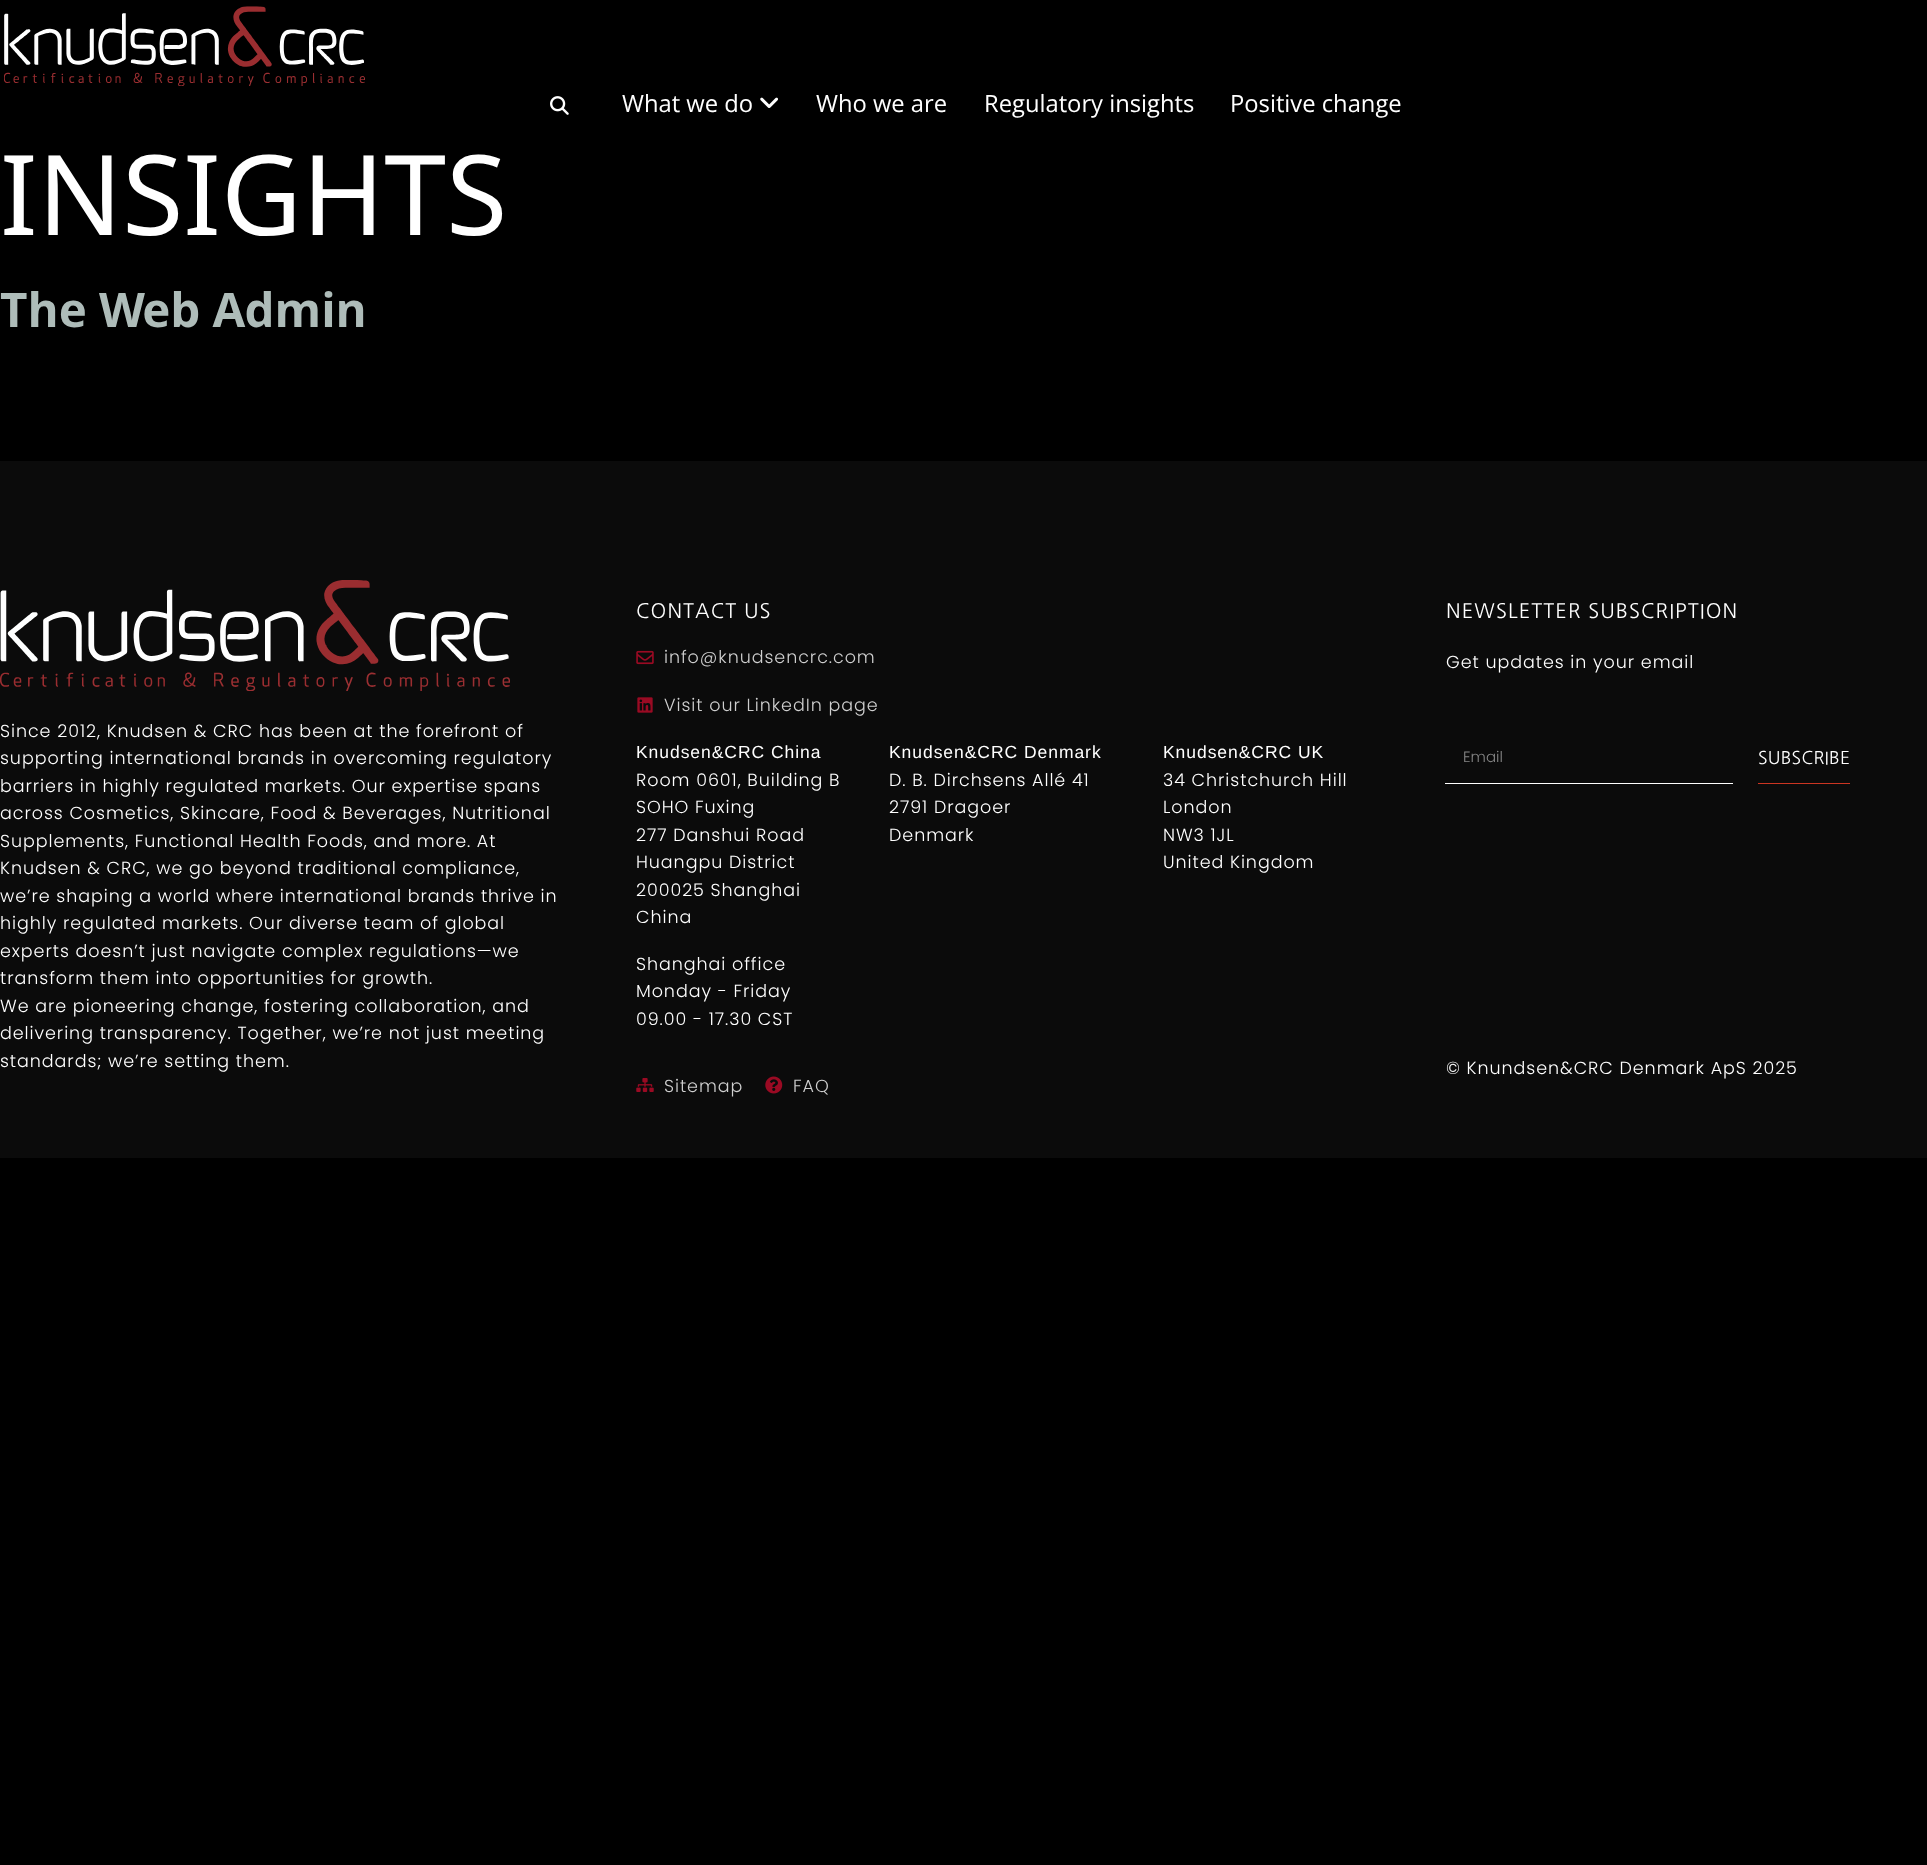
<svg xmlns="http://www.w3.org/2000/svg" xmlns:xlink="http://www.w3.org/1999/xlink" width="1927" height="1865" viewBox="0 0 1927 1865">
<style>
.cls-1{font:23.75px Open Sans;fill:#ffffff}
.cls-2{font:111.25px Nokora;fill:#ffffff}
.cls-3{font:bold 47.5px Nokora;fill:#aebcb9}
.cls-4{font:300 17.5px Poppins;letter-spacing:0.95px;fill:#ffffff}
.cls-5{font:20px NanumGothic;letter-spacing:1.1px;fill:#ffffff}
.cls-6{font:300 17.5px Poppins;letter-spacing:0.95px;fill:#cfcfcf}
.cls-7{font:17.5px Liberation Sans;letter-spacing:0.95px;fill:#ffffff}
.cls-8{font:300 15px Poppins;fill:#878787}
.cls-9{font:17.5px NanumGothic;letter-spacing:0.25px;fill:#ffffff}
</style>
<rect width="100%" height="100%" fill="#000000"/>
<image xlink:href="image0.png" x="4" y="6" width="361" height="80"/>
<image xlink:href="image1.png" x="550" y="96" width="19" height="19"/>
<image xlink:href="image2.png" x="760" y="97" width="18" height="11"/>
<rect fill="#0b0b0b" x="0" y="461" width="1927" height="697"/>
<image xlink:href="image3.png" x="0" y="580" width="510" height="111"/>
<image xlink:href="image4.png" x="636" y="650" width="18" height="15"/>
<image xlink:href="image5.png" x="637" y="697" width="16" height="16"/>
<image xlink:href="image6.png" x="636" y="1078" width="18" height="14"/>
<image xlink:href="image7.png" x="765" y="1076" width="18" height="18"/>
<rect fill="#ffffff" x="1445" y="783" width="288" height="1"/>
<rect fill="#cb3522" x="1758" y="783" width="92" height="1"/>
<text class="cls-1" x="622" y="112">What we do</text>
<text class="cls-1" x="816" y="112">Who we are</text>
<text class="cls-1" x="984" y="112">Regulatory insights</text>
<text class="cls-1" x="1230" y="112">Positive change</text>
<text class="cls-2" x="0" y="235">INSIGHTS</text>
<text class="cls-3" x="0" y="327">The Web Admin</text>
<text class="cls-4"><tspan x="0" y="737">Since 2012, Knudsen &amp; CRC has been at the forefront of</tspan><tspan x="0" y="764">supporting international brands in overcoming regulatory</tspan><tspan x="0" y="792">barriers in highly regulated markets. Our expertise spans</tspan><tspan x="0" y="819">across Cosmetics, Skincare, Food &amp; Beverages, Nutritional</tspan><tspan x="0" y="847">Supplements, Functional Health Foods, and more. At</tspan><tspan x="0" y="874">Knudsen &amp; CRC, we go beyond traditional compliance,</tspan><tspan x="0" y="902">we’re shaping a world where international brands thrive in</tspan><tspan x="0" y="929">highly regulated markets. Our diverse team of global</tspan><tspan x="0" y="957">experts doesn’t just navigate complex regulations—we</tspan><tspan x="0" y="984">transform them into opportunities for growth.</tspan><tspan x="0" y="1012">We are pioneering change, fostering collaboration, and</tspan><tspan x="0" y="1039">delivering transparency. Together, we’re not just meeting</tspan><tspan x="0" y="1067">standards; we’re setting them.</tspan></text>
<text class="cls-5" x="636" y="618">CONTACT US</text>
<text class="cls-6" x="664" y="663">info@knudsencrc.com</text>
<text class="cls-6" x="664" y="711">Visit our LinkedIn page</text>
<text class="cls-7" x="636" y="758">Knudsen&amp;CRC China</text>
<text class="cls-4"><tspan x="636" y="786">Room 0601, Building B</tspan><tspan x="636" y="813">SOHO Fuxing</tspan><tspan x="636" y="841">277 Danshui Road</tspan><tspan x="636" y="868">Huangpu District</tspan><tspan x="636" y="896">200025 Shanghai</tspan><tspan x="636" y="923">China</tspan></text>
<text class="cls-4"><tspan x="636" y="970">Shanghai office</tspan><tspan x="636" y="997">Monday - Friday</tspan><tspan x="636" y="1025">09.00 - 17.30 CST</tspan></text>
<text class="cls-7" x="889" y="758">Knudsen&amp;CRC Denmark</text>
<text class="cls-4"><tspan x="889" y="786">D. B. Dirchsens Allé 41</tspan><tspan x="889" y="813">2791 Dragoer</tspan><tspan x="889" y="841">Denmark</tspan></text>
<text class="cls-7" x="1163" y="758">Knudsen&amp;CRC UK</text>
<text class="cls-4"><tspan x="1163" y="786">34 Christchurch Hill</tspan><tspan x="1163" y="813">London</tspan><tspan x="1163" y="841">NW3 1JL</tspan><tspan x="1163" y="868">United Kingdom</tspan></text>
<text class="cls-6" x="664" y="1092">Sitemap</text>
<text class="cls-6" x="793" y="1092">FAQ</text>
<text class="cls-5" x="1446" y="618">NEWSLETTER SUBSCRIPTION</text>
<text class="cls-4" x="1446" y="668">Get updates in your email</text>
<text class="cls-8" x="1463" y="762">Email</text>
<text class="cls-9" x="1758" y="764">SUBSCRIBE</text>
<text class="cls-4" x="1446" y="1074">© Knundsen&amp;CRC Denmark ApS 2025</text>
</svg>
